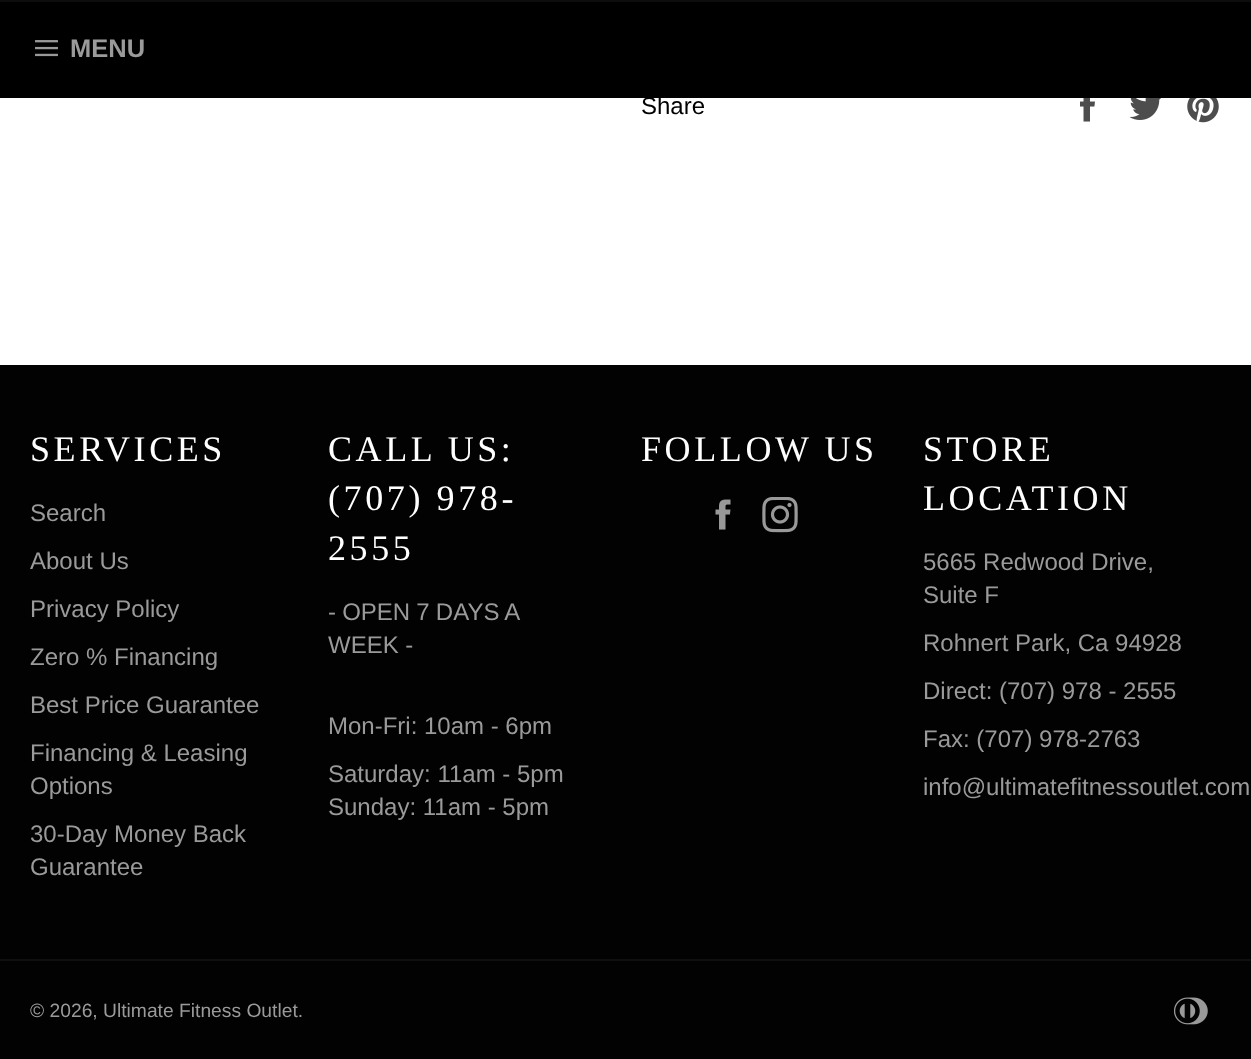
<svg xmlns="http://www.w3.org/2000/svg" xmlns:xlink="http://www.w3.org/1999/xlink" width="1251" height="1059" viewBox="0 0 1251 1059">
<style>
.cls-1{font:bold 25.5px Liberation Sans;fill:#9a9a9a}
.cls-2{font:24px Liberation Sans;fill:#000000}
.cls-3{font:36px Liberation Serif;letter-spacing:3.6px;fill:#ffffff}
.cls-4{font:24px Liberation Sans;fill:#9a9a9a}
.cls-5{font:19.25px Liberation Sans;fill:#9a9a9a}
</style>
<rect width="100%" height="100%" fill="#ffffff"/>
<rect fill="#000000" x="0" y="2" width="1251" height="96"/>
<rect fill="#0d0d0d" x="0" y="0" width="1251" height="2"/>
<image xlink:href="image0.png" x="35" y="40" width="23" height="17"/>
<image xlink:href="image1.png" x="1080" y="98" width="15" height="24"/>
<image xlink:href="image2.png" x="1129" y="98" width="32" height="22"/>
<image xlink:href="image3.png" x="1187" y="98" width="32" height="25"/>
<rect fill="#020202" x="0" y="365" width="1251" height="694"/>
<image xlink:href="image4.png" x="715" y="499" width="16" height="31"/>
<image xlink:href="image5.png" x="762" y="497" width="36" height="36"/>
<rect fill="#0f0f0f" x="0" y="959" width="1251" height="2"/>
<image xlink:href="image6.png" x="1174" y="997" width="34" height="28"/>
<text class="cls-1" x="70" y="57">MENU</text>
<text class="cls-2" x="641" y="114">Share</text>
<text class="cls-3" x="30" y="461">SERVICES</text>
<text class="cls-4" x="30" y="521">Search</text>
<text class="cls-4" x="30" y="569">About Us</text>
<text class="cls-4" x="30" y="617">Privacy Policy</text>
<text class="cls-4" x="30" y="665">Zero % Financing</text>
<text class="cls-4" x="30" y="713">Best Price Guarantee</text>
<text class="cls-4"><tspan x="30" y="761">Financing &amp; Leasing</tspan><tspan x="30" y="794">Options</tspan></text>
<text class="cls-4"><tspan x="30" y="842">30-Day Money Back</tspan><tspan x="30" y="875">Guarantee</tspan></text>
<text class="cls-3"><tspan x="328" y="461">CALL US:</tspan><tspan x="328" y="510">(707) 978-</tspan><tspan x="328" y="560">2555</tspan></text>
<text class="cls-4"><tspan x="328" y="620" word-spacing="-0.5">- OPEN 7 DAYS A</tspan><tspan x="328" y="653">WEEK -</tspan></text>
<text class="cls-4" x="328" y="734">Mon-Fri: 10am - 6pm</text>
<text class="cls-4"><tspan x="328" y="782">Saturday: 11am - 5pm</tspan><tspan x="328" y="815">Sunday: 11am - 5pm</tspan></text>
<text class="cls-3" x="641" y="461">FOLLOW US</text>
<text class="cls-3"><tspan x="923" y="461">STORE</tspan><tspan x="923" y="510">LOCATION</tspan></text>
<text class="cls-4"><tspan x="923" y="570">5665 Redwood Drive,</tspan><tspan x="923" y="603">Suite F</tspan></text>
<text class="cls-4" x="923" y="651">Rohnert Park, Ca 94928</text>
<text class="cls-4" x="923" y="699">Direct: (707) 978 - 2555</text>
<text class="cls-4" x="923" y="747">Fax: (707) 978-2763</text>
<text class="cls-4" x="923" y="795">info@ultimatefitnessoutlet.com</text>
<text class="cls-5" x="30" y="1017">© 2026, Ultimate Fitness Outlet.</text>
</svg>
